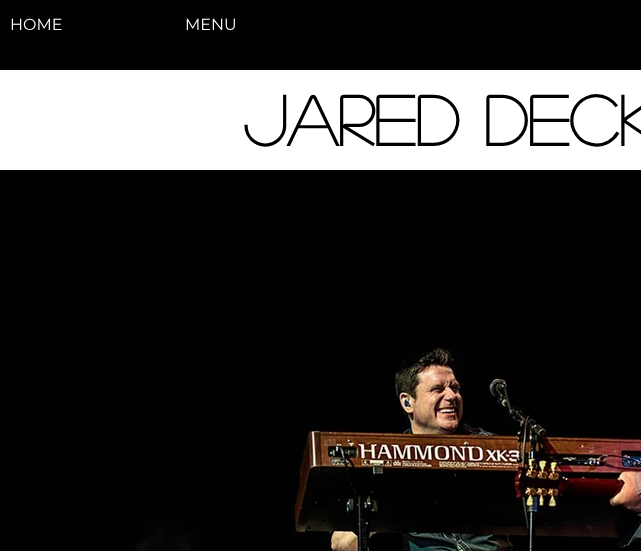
<svg xmlns="http://www.w3.org/2000/svg" xmlns:xlink="http://www.w3.org/1999/xlink" width="641" height="551" viewBox="0 0 641 551">
<style>
.cls-1{font:16px Montserrat;fill:#ffffff}
.cls-2{font:bold 70px 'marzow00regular';fill:#000000}
</style>
<rect width="100%" height="100%" fill="#000000"/>
<rect fill="#ffffff" x="0" y="70" width="641" height="100"/>
<image xlink:href="image0.png" x="0" y="170" width="641" height="381"/>
<text class="cls-1" x="10" y="30">HOME</text>
<text class="cls-1" x="185" y="30">MENU</text>
<text class="cls-2" x="243" y="146">Jared Deck</text>
</svg>
